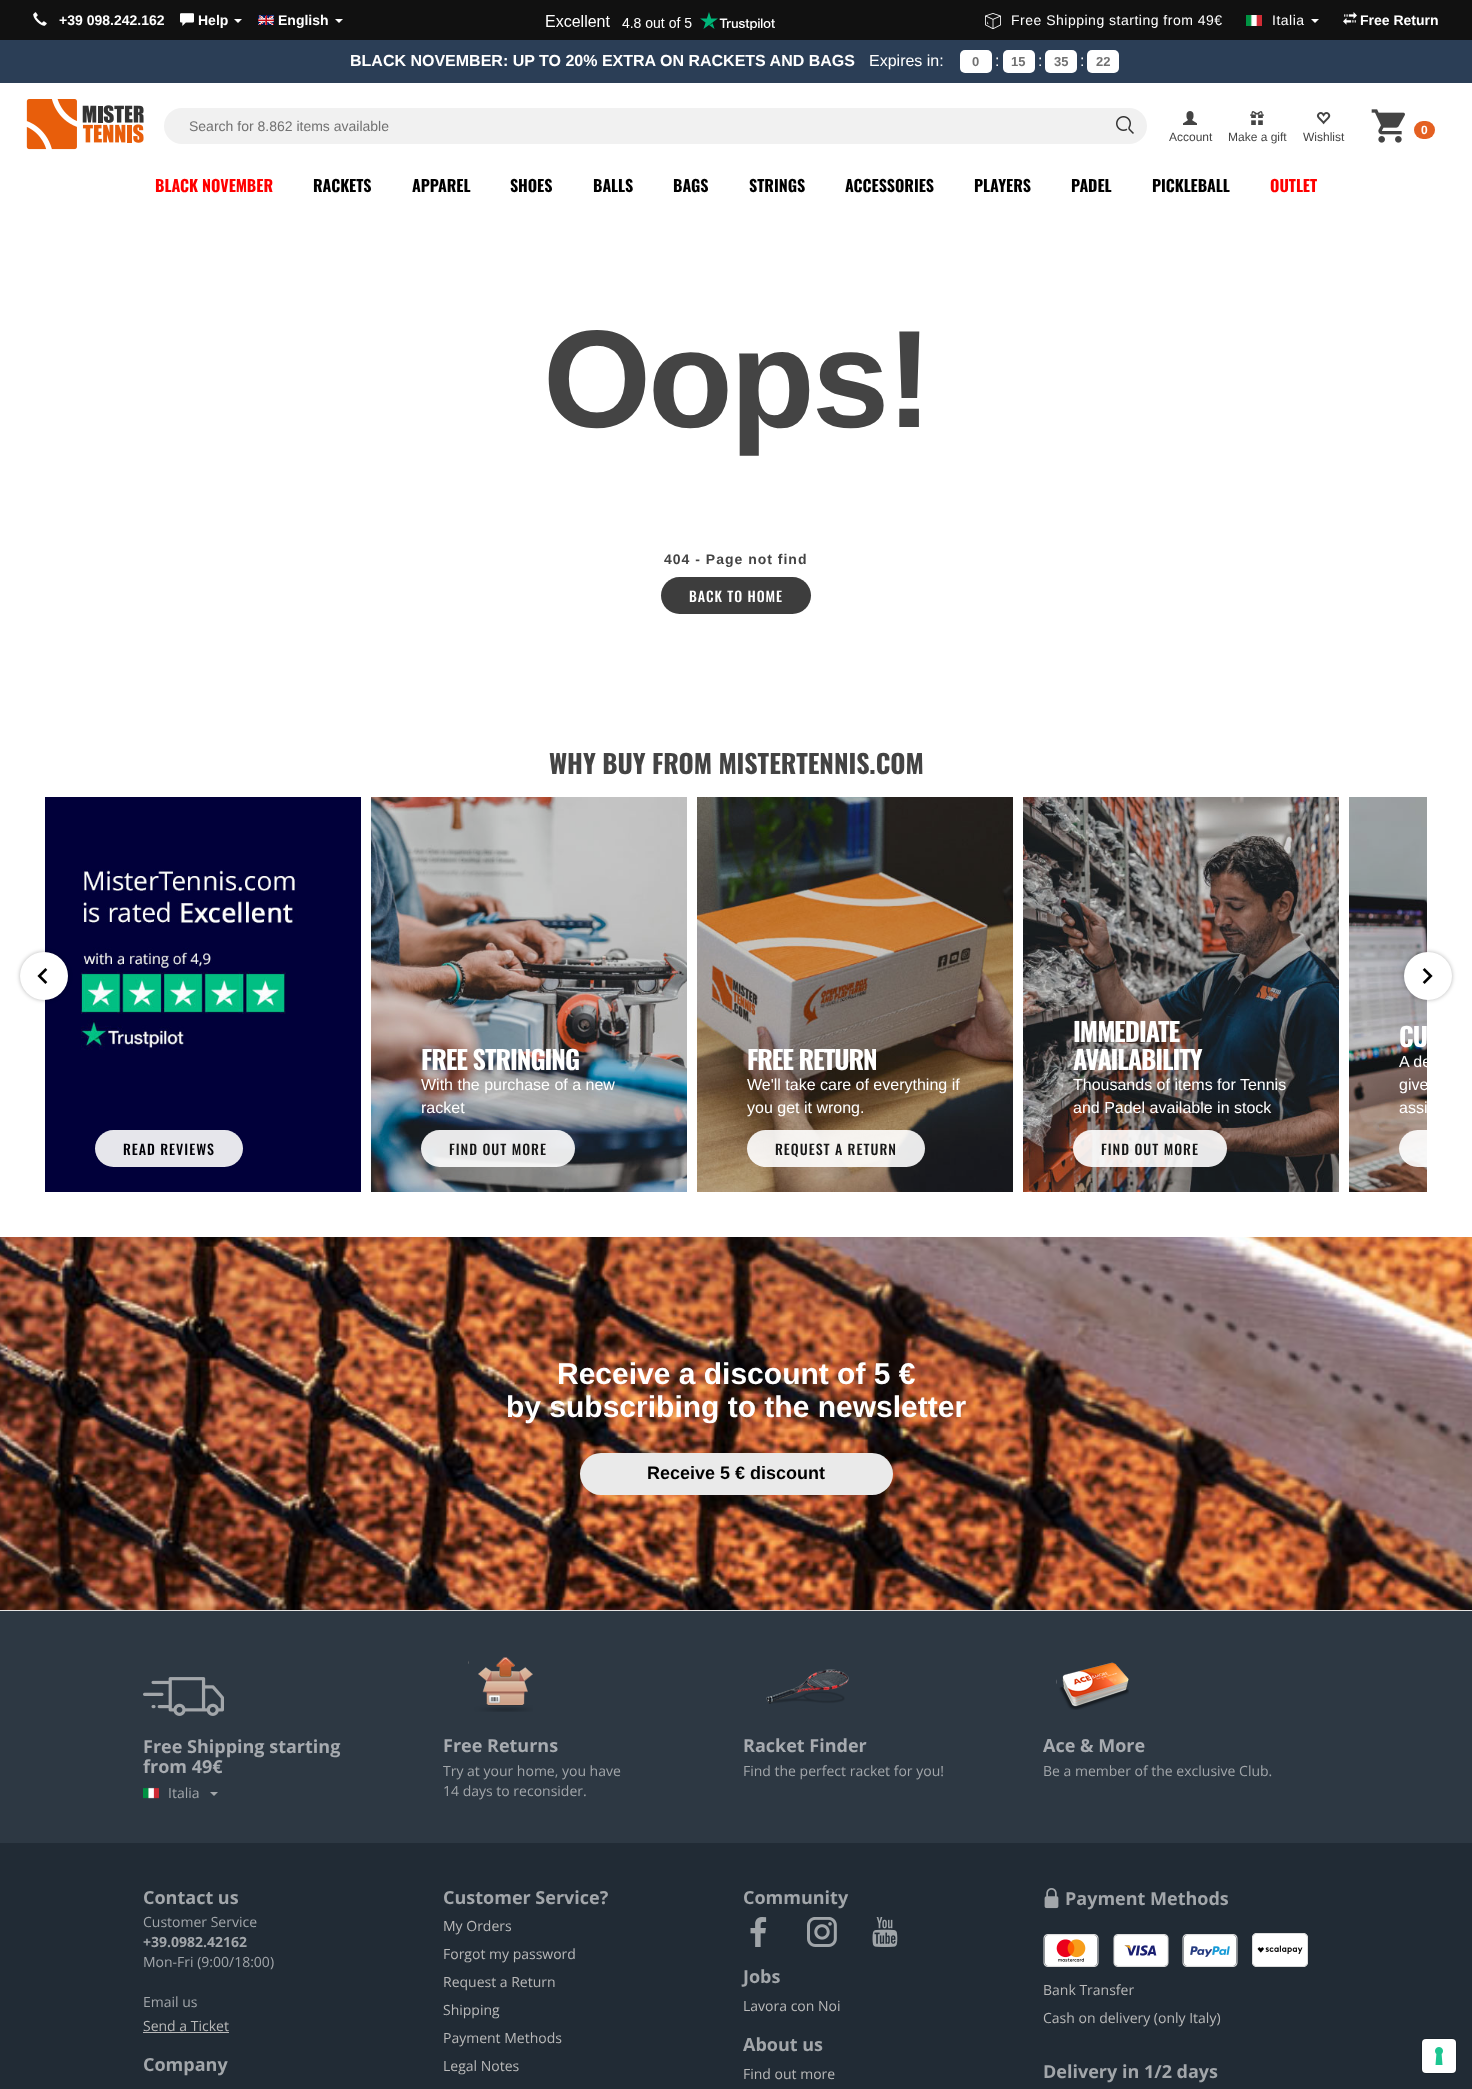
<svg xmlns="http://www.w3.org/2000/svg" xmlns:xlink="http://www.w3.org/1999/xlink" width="1472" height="2089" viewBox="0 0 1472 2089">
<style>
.cls-1{font:bold 14px Liberation Sans;fill:#ffffff}
.cls-2{font:14px Liberation Sans;letter-spacing:0.5px;fill:#ffffff}
.cls-3{font:bold 16px Liberation Sans;fill:#ffffff}
.cls-4{font:16px Liberation Sans;fill:#ffffff}
.cls-5{font:bold 13px Liberation Sans;fill:#717171}
.cls-6{font:14px Liberation Sans;fill:#717171}
.cls-7{font:bold 12px Liberation Sans;fill:#ffffff}
.cls-8{font:12px Liberation Sans;fill:#444444}
.cls-9{font:bold 16px Oswald;fill:#ff0000}
.cls-10{font:bold 16px Oswald;fill:#000000}
.cls-11{font:bold 139px Liberation Sans;letter-spacing:-3px;fill:#444444}
.cls-12{font:bold 14px Liberation Sans;letter-spacing:1px;fill:#444444}
.cls-13{font:500 14px Oswald;letter-spacing:1px;fill:#ffffff}
.cls-14{font:bold 26px Oswald;fill:#444444}
.cls-15{font:500 14px Oswald;letter-spacing:1px;fill:#000006}
.cls-16{font:bold 26px Oswald;letter-spacing:-1px;fill:#ffffff}
.cls-17{font:500 14px Oswald;letter-spacing:1px;fill:#171717}
.cls-18{font:bold 30px Liberation Sans;fill:#ffffff}
.cls-19{font:bold 18px Liberation Sans;fill:#000000}
.cls-20{font:bold 18px Open Sans;fill:#a7abb0}
.cls-21{font:14px Open Sans;fill:#a2a6aa}
.cls-22{font:bold 18px Open Sans;fill:#a2a6aa}
.cls-23{font:bold 14px Open Sans;fill:#a2a6aa}
.cls-24{font:14px Open Sans;fill:#b9b9b9}
</style>
<defs>
<clipPath id="clip1"><rect x="45" y="797" width="1382" height="395"/></clipPath>
</defs>
<rect width="100%" height="100%" fill="#ffffff"/>
<rect fill="#111111" x="0" y="0" width="1472" height="40"/>
<image xlink:href="image0.png" x="33" y="12" width="14" height="14"/>
<image xlink:href="image1.png" x="180" y="13" width="14" height="13"/>
<path fill="#ffffff" d="M234 19H242L238 23Z"/>
<image xlink:href="image2.png" x="258" y="15" width="16" height="10"/>
<path fill="#ffffff" d="M335 19H343L339 23Z"/>
<image xlink:href="image3.png" x="546" y="12" width="229" height="18"/>
<image xlink:href="image4.png" x="985" y="13" width="16" height="16"/>
<image xlink:href="image5.png" x="1246" y="15" width="16" height="11"/>
<path fill="#ffffff" d="M1311 19H1319L1315 23Z"/>
<image xlink:href="image6.png" x="1343" y="12" width="14" height="13"/>
<rect fill="#2b3e56" x="0" y="40" width="1472" height="43"/>
<rect fill="#ffffff" x="960" y="50" width="32" height="23" rx="5"/>
<rect fill="#ffffff" x="1003" y="50" width="32" height="23" rx="5"/>
<rect fill="#ffffff" x="1045" y="50" width="32" height="23" rx="5"/>
<rect fill="#ffffff" x="1087" y="50" width="32" height="23" rx="5"/>
<image xlink:href="image7.png" x="26" y="99" width="118" height="51"/>
<rect fill="#f1f1f1" x="164" y="108" width="983" height="36" rx="18"/>
<image xlink:href="image8.png" x="1116" y="116" width="18" height="18"/>
<image xlink:href="image9.png" x="1371" y="109" width="34" height="34"/>
<rect fill="#e46021" x="1414" y="121" width="21" height="18" rx="9"/>
<image xlink:href="image10.png" x="1183" y="111" width="14" height="14"/>
<image xlink:href="image11.png" x="1250" y="111" width="14" height="14"/>
<image xlink:href="image12.png" x="1316" y="112" width="15" height="13"/>
<rect fill="#3d3d3d" x="661" y="577" width="150" height="37" rx="18.5"/>
<image xlink:href="image15.png" x="45" y="797" width="316" height="395"/>
<rect fill="#000000" fill-opacity="0.29" filter="blur(2px)" x="20" y="952" width="48" height="48" rx="24"/>
<circle fill="#ffffff" cx="44" cy="976" r="24"/>
<image xlink:href="image13.png" x="37" y="968" width="11" height="16"/>
<image xlink:href="image19.png" x="1349" y="797" width="78" height="395"/>
<rect fill="#000000" fill-opacity="0.29" filter="blur(2px)" x="1404" y="952" width="48" height="48" rx="24"/>
<circle fill="#ffffff" cx="1428" cy="976" r="24"/>
<image xlink:href="image14.png" x="1422" y="968" width="11" height="16"/>
<rect fill="#e6e6eb" x="95" y="1130" width="148" height="37" rx="18.5"/>
<image xlink:href="image16.png" x="371" y="797" width="316" height="395"/>
<rect fill="#ffffff" fill-opacity="0.9" x="421" y="1130" width="154" height="37" rx="18.5"/>
<image xlink:href="image17.png" x="697" y="797" width="316" height="395"/>
<rect fill="#ffffff" fill-opacity="0.9" x="747" y="1130" width="178" height="37" rx="18.5"/>
<image xlink:href="image18.png" x="1023" y="797" width="316" height="395"/>
<rect fill="#ffffff" fill-opacity="0.9" x="1073" y="1130" width="154" height="37" rx="18.5"/>
<path fill="#ffffff" fill-opacity="0.9" d="M1417.5 1130H1427V1167H1417.5C1407.5 1167 1399 1158.5 1399 1148.5C1399 1138.5 1407.5 1130 1417.5 1130Z"/>
<image xlink:href="image20.png" x="0" y="1237" width="1472" height="373"/>
<rect fill="#eaeaea" x="580" y="1453" width="313" height="42" rx="21"/>
<rect fill="#212b35" x="0" y="1843" width="1472" height="246"/>
<rect fill="#e4e4e4" x="0" y="1610" width="1472" height="1"/>
<rect fill="#2d3843" x="0" y="1611" width="1472" height="232"/>
<image xlink:href="image21.png" x="143" y="1677" width="81" height="39"/>
<image xlink:href="image22.png" x="143" y="1787" width="16" height="12"/>
<path fill="#a2a6aa" d="M210 1792H218L214 1796Z"/>
<image xlink:href="image23.png" x="468" y="1657" width="65" height="55"/>
<image xlink:href="image24.png" x="766" y="1669" width="83" height="35"/>
<image xlink:href="image25.png" x="1056" y="1662" width="73" height="48"/>
<rect fill="#b9b9b9" x="143" y="2032" width="86" height="1"/>
<image xlink:href="image26.png" x="750" y="1917" width="17" height="30"/>
<image xlink:href="image27.png" x="807" y="1917" width="30" height="30"/>
<image xlink:href="image28.png" x="872" y="1917" width="26" height="30"/>
<image xlink:href="image29.png" x="1044" y="1888" width="15" height="21"/>
<image xlink:href="image30.png" x="1043" y="1934" width="56" height="33"/>
<image xlink:href="image31.png" x="1113" y="1934" width="56" height="33"/>
<image xlink:href="image32.png" x="1182" y="1934" width="56" height="33"/>
<image xlink:href="image33.png" x="1252" y="1933" width="56" height="34"/>
<rect fill="none" stroke="#1c252d" x="1421.5" y="2038.5" width="35" height="35" rx="4.5"/>
<rect fill="#ffffff" x="1422" y="2039" width="34" height="34" rx="4"/>
<image xlink:href="image34.png" x="1435" y="2047" width="8" height="18"/>
<text class="cls-1" x="59" y="25">+39 098.242.162</text>
<text class="cls-1" x="198" y="25">Help</text>
<text class="cls-1" x="278" y="25">English</text>
<text class="cls-2" x="1011" y="25">Free Shipping starting from 49€</text>
<text class="cls-2" x="1272" y="25">Italia</text>
<text class="cls-1" x="1360" y="25">Free Return</text>
<text class="cls-3" x="350" y="66">BLACK NOVEMBER: UP TO 20% EXTRA ON RACKETS AND BAGS</text>
<text class="cls-4" x="869" y="66">Expires in:</text>
<text class="cls-5" x="972" y="66">0</text>
<text class="cls-4" x="995" y="66">:</text>
<text class="cls-5" x="1011" y="66">15</text>
<text class="cls-4" x="1038" y="66">:</text>
<text class="cls-5" x="1054" y="66">35</text>
<text class="cls-4" x="1080" y="66">:</text>
<text class="cls-5" x="1096" y="66">22</text>
<text class="cls-6" x="189" y="131">Search for 8.862 items available</text>
<text class="cls-7" x="1421" y="134">0</text>
<text class="cls-8" x="1169" y="141">Account</text>
<text class="cls-8" x="1228" y="141">Make a gift</text>
<text class="cls-8" x="1303" y="141">Wishlist</text>
<text class="cls-9" x="155" y="192">BLACK NOVEMBER</text>
<text class="cls-10" x="313" y="192">RACKETS</text>
<text class="cls-10" x="412" y="192">APPAREL</text>
<text class="cls-10" x="510" y="192">SHOES</text>
<text class="cls-10" x="593" y="192">BALLS</text>
<text class="cls-10" x="673" y="192">BAGS</text>
<text class="cls-10" x="749" y="192">STRINGS</text>
<text class="cls-10" x="845" y="192">ACCESSORIES</text>
<text class="cls-10" x="974" y="192">PLAYERS</text>
<text class="cls-10" x="1071" y="192">PADEL</text>
<text class="cls-10" x="1152" y="192">PICKLEBALL</text>
<text class="cls-9" x="1270" y="192">OUTLET</text>
<text class="cls-11" x="543" y="427">Oops!</text>
<text class="cls-12" x="664" y="564">404 - Page not find</text>
<text class="cls-13" x="689" y="602">BACK TO HOME</text>
<text class="cls-14" x="549" y="774">WHY BUY FROM MISTERTENNIS.COM</text>
<text class="cls-15" x="123" y="1155">READ REVIEWS</text>
<text class="cls-16" x="421" y="1070">FREE STRINGING</text>
<text class="cls-4"><tspan x="421" y="1090">With the purchase of a new</tspan><tspan x="421" y="1113">racket</tspan></text>
<text class="cls-17" x="449" y="1155">FIND OUT MORE</text>
<text class="cls-16" x="747" y="1070">FREE RETURN</text>
<text class="cls-4"><tspan x="747" y="1090">We'll take care of everything if</tspan><tspan x="747" y="1113">you get it wrong.</tspan></text>
<text class="cls-17" x="775" y="1155">REQUEST A RETURN</text>
<text class="cls-16"><tspan x="1073" y="1042">IMMEDIATE</tspan><tspan x="1073" y="1070">AVAILABILITY</tspan></text>
<text class="cls-4"><tspan x="1073" y="1090">Thousands of items for Tennis</tspan><tspan x="1073" y="1113">and Padel available in stock</tspan></text>
<text class="cls-17" x="1101" y="1155">FIND OUT MORE</text>
<text class="cls-16" x="1399" y="1047">CU</text>
<g clip-path="url(#clip1)">
<text class="cls-4"><tspan x="1399" y="1067">A de</tspan><tspan x="1399" y="1090">give</tspan></text>
</g>
<text class="cls-4" x="1399" y="1113">assi</text>
<text class="cls-18" x="557" y="1384">Receive a discount of 5 €</text>
<text class="cls-18" x="506" y="1417">by subscribing to the newsletter</text>
<text class="cls-19" x="647" y="1479">Receive 5 € discount</text>
<text class="cls-20"><tspan x="143" y="1753">Free Shipping starting</tspan><tspan x="143" y="1773">from 49€</tspan></text>
<text class="cls-21" x="168" y="1798">Italia</text>
<text class="cls-20" x="443" y="1752">Free Returns</text>
<text class="cls-21"><tspan x="443" y="1776">Try at your home, you have</tspan><tspan x="443" y="1796">14 days to reconsider.</tspan></text>
<text class="cls-20" x="743" y="1752">Racket Finder</text>
<text class="cls-21" x="743" y="1776">Find the perfect racket for you!</text>
<text class="cls-20" x="1043" y="1752">Ace &amp; More</text>
<text class="cls-21" x="1043" y="1776">Be a member of the exclusive Club.</text>
<text class="cls-22" x="143" y="1904">Contact us</text>
<text class="cls-21" x="143" y="1927">Customer Service</text>
<text class="cls-23" x="143" y="1947">+39.0982.42162</text>
<text class="cls-21" x="143" y="1967">Mon-Fri (9:00/18:00)</text>
<text class="cls-21" x="143" y="2007">Email us</text>
<text class="cls-24" x="143" y="2031">Send a Ticket</text>
<text class="cls-22" x="143" y="2071">Company</text>
<text class="cls-22" x="443" y="1904">Customer Service?</text>
<text class="cls-24" x="443" y="1931">My Orders</text>
<text class="cls-24" x="443" y="1959">Forgot my password</text>
<text class="cls-24" x="443" y="1987">Request a Return</text>
<text class="cls-24" x="443" y="2015">Shipping</text>
<text class="cls-24" x="443" y="2043">Payment Methods</text>
<text class="cls-24" x="443" y="2071">Legal Notes</text>
<text class="cls-22" x="743" y="1904">Community</text>
<text class="cls-22" x="743" y="1983">Jobs</text>
<text class="cls-24" x="743" y="2011">Lavora con Noi</text>
<text class="cls-22" x="743" y="2051">About us</text>
<text class="cls-24" x="743" y="2079">Find out more</text>
<text class="cls-22" x="1065" y="1905">Payment Methods</text>
<text class="cls-24" x="1043" y="1995">Bank Transfer</text>
<text class="cls-24" x="1043" y="2023">Cash on delivery (only Italy)</text>
<text class="cls-22" x="1043" y="2078">Delivery in 1/2 days</text>
</svg>
